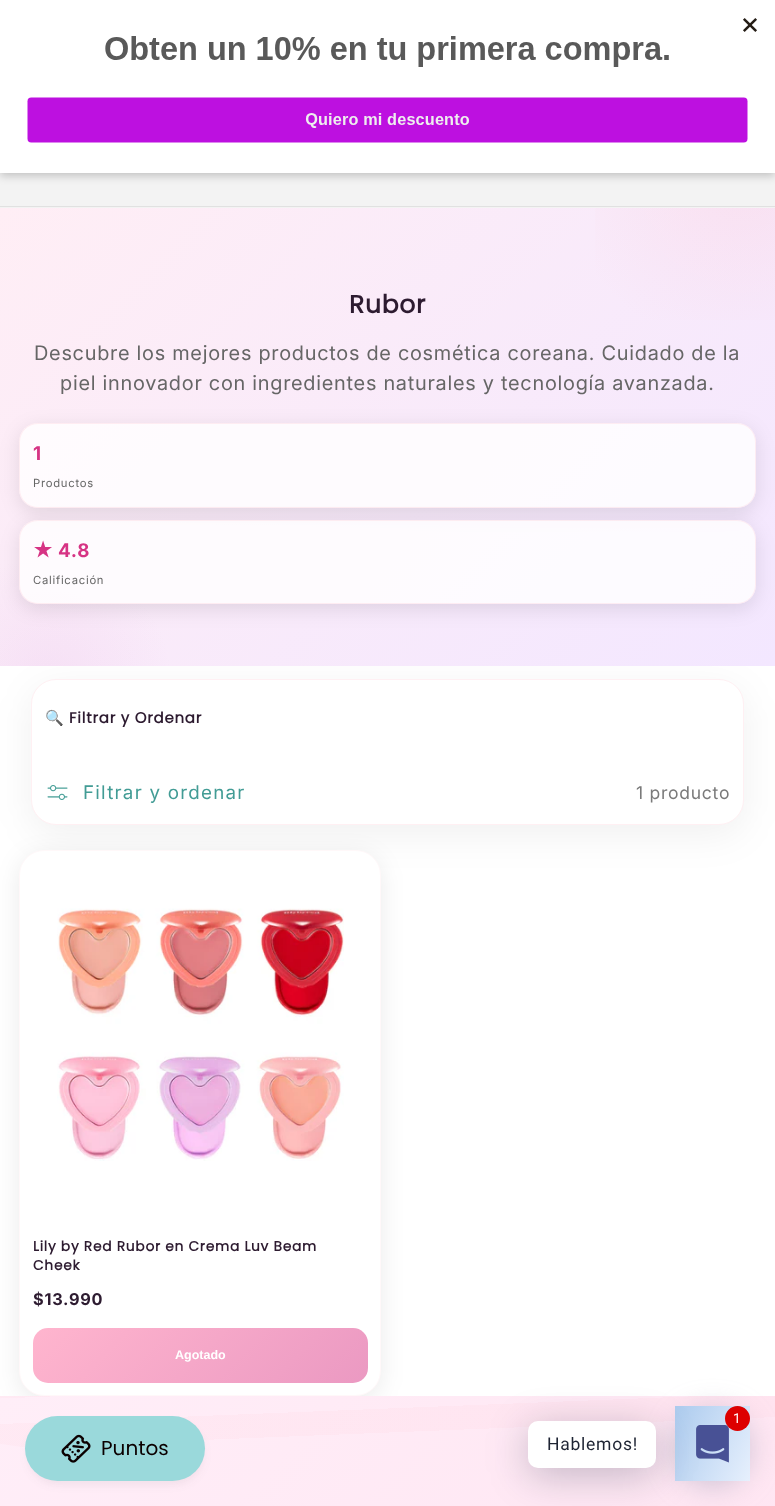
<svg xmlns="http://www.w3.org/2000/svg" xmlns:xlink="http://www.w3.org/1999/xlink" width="775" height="1506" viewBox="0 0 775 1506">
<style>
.cls-1{font:bold 25px Poppins;letter-spacing:0.75px;fill:#2d1b30}
.cls-2{font:20px 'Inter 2';letter-spacing:0.75px;fill:#666666}
.cls-3{font:bold 18.75px Inter;letter-spacing:0.75px;fill:#d63384}
.cls-4{font:11.25px Inter;letter-spacing:0.75px;fill:#666666}
.cls-5{font:bold 18.75px 'Inter 2';letter-spacing:0.75px;fill:#d63384}
.cls-6{font:bold 15px Noto Color Emoji;letter-spacing:0.75px;fill:#2d1b30}
.cls-7{font:bold 15px Poppins;letter-spacing:0.75px;fill:#2d1b30}
.cls-8{font:18.75px Inter;letter-spacing:1.25px;fill:#429c95}
.cls-9{font:17.5px Inter;letter-spacing:0.75px;fill:#7a7a7a}
.cls-10{font:bold 13.75px Poppins;letter-spacing:0.75px;fill:#2d1b30}
.cls-11{font:bold 16.25px Inter;letter-spacing:0.75px;fill:#2d1b30}
.cls-12{font:bold 12.5px Liberation Sans;fill:#ffffff}
.cls-13{font:20px Poppins;fill:#0b0000}
.cls-14{font:13.75px Roboto;letter-spacing:0.75px;fill:#ffffff}
.cls-15{font:17.5px Roboto;letter-spacing:0.75px;fill:#1e2433}
</style>
<defs>
<linearGradient id="g1" gradientUnits="userSpaceOnUse" x1="79" y1="128" x2="696" y2="745"><stop offset="0" stop-color="#ffeef5"/><stop offset="1" stop-color="#f3e7ff"/></linearGradient>
<radialGradient id="g2" gradientUnits="userSpaceOnUse" cx="743" cy="165" r="265"><stop offset="0" stop-color="#ffb6c1" stop-opacity="0.2"/><stop offset="0.7" stop-color="#ffb6c1" stop-opacity="0"/></radialGradient>
<clipPath id="clip1"><path d="M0 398H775V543H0ZM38 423H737C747.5 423 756 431.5 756 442V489C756 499.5 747.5 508 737 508H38C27.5 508 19 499.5 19 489V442C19 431.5 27.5 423 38 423Z" clip-rule="evenodd"/></clipPath>
<clipPath id="clip2"><rect x="0" y="208" width="775" height="458"/></clipPath>
<radialGradient id="g3" gradientUnits="userSpaceOnUse" cx="48" cy="680" r="177"><stop offset="0" stop-color="#dda0dd" stop-opacity="0.15"/><stop offset="0.7" stop-color="#dda0dd" stop-opacity="0"/></radialGradient>
<clipPath id="clip3"><path d="M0 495H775V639H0ZM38 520H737C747.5 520 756 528.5 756 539V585C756 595.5 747.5 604 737 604H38C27.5 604 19 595.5 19 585V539C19 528.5 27.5 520 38 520Z" clip-rule="evenodd"/></clipPath>
<linearGradient id="g4" gradientUnits="userSpaceOnUse" x1="102" y1="1258" x2="298" y2="1453"><stop offset="0" stop-color="#ffb5ce"/><stop offset="1" stop-color="#eb99c2"/></linearGradient>
<linearGradient id="g5" gradientUnits="userSpaceOnUse" x1="-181" y1="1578" x2="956" y2="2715"><stop offset="0" stop-color="#ffeef8"/><stop offset="0.5" stop-color="#ffe4f1"/><stop offset="1" stop-color="#ffd9ea"/></linearGradient>
<clipPath id="clip4"><rect x="0" y="1396" width="775" height="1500"/></clipPath>
<linearGradient id="g6" gradientUnits="userSpaceOnUse" x1="390" y1="1458" x2="384" y2="1308"><stop offset="0" stop-color="#000000" stop-opacity="0"/><stop offset="0.17" stop-color="#ffc0cb" stop-opacity="0"/><stop offset="0.17" stop-color="#ffc0cb" stop-opacity="0.1"/><stop offset="0.33" stop-color="#ffc0cb" stop-opacity="0.1"/><stop offset="0.33" stop-color="#ffc0cb" stop-opacity="0"/><stop offset="0.5" stop-color="#ffc0cb" stop-opacity="0"/><stop offset="0.5" stop-color="#ffc0cb" stop-opacity="0.1"/><stop offset="0.67" stop-color="#ffc0cb" stop-opacity="0.1"/><stop offset="0.67" stop-color="#ffc0cb" stop-opacity="0"/><stop offset="0.83" stop-color="#ffc0cb" stop-opacity="0"/><stop offset="0.83" stop-color="#ffc0cb" stop-opacity="0.1"/><stop offset="1" stop-color="#ffc0cb" stop-opacity="0.1"/></linearGradient>
<linearGradient id="g7" gradientUnits="userSpaceOnUse" x1="667" y1="1423" x2="758" y2="1465"><stop offset="0" stop-color="#accbee"/><stop offset="1" stop-color="#e7f0fd"/></linearGradient>
</defs>
<rect width="100%" height="100%" fill="#ffffff"/>
<rect fill="#f3f3f3" x="0" y="173" width="775" height="35"/>
<rect fill="#000000" fill-opacity="0.2" filter="blur(4px)" x="0" y="4" width="775" height="172"/>
<rect fill="#ffffff" x="0" y="0" width="775" height="173"/>
<image xlink:href="image0.png" x="27" y="18" width="730" height="125"/>
<rect fill="#e1e1e1" x="0" y="206" width="775" height="1"/>
<rect fill="#000000" fill-opacity="0.06" filter="blur(19px)" x="31" y="689" width="713" height="146" rx="25"/>
<rect fill="url(#g1)" x="0" y="208" width="775" height="458"/>
<rect fill="url(#g2)" x="595" y="208" width="180" height="112"/>
<g clip-path="url(#clip1)">
<rect fill="#000000" fill-opacity="0.1" filter="blur(9.5px)" x="19" y="428" width="737" height="85" rx="19"/>
</g>
<rect fill="#ffffff" fill-opacity="0.8" x="19" y="423" width="737" height="85" rx="19"/>
<rect fill="none" stroke="#ffb6c1" stroke-opacity="0.2" x="19.5" y="423.5" width="736" height="84" rx="18.5"/>
<rect fill="#ffffff" stroke="#fff0f3" x="31.5" y="679.5" width="712" height="145" rx="24.5"/>
<g clip-path="url(#clip2)">
<circle fill="url(#g3)" cx="48" cy="680" r="125"/>
</g>
<g clip-path="url(#clip3)">
<rect fill="#000000" fill-opacity="0.1" filter="blur(9.5px)" x="19" y="525" width="737" height="84" rx="19"/>
</g>
<rect fill="#ffffff" fill-opacity="0.8" x="19" y="520" width="737" height="84" rx="19"/>
<rect fill="none" stroke="#ffb6c1" stroke-opacity="0.2" x="19.5" y="520.5" width="736" height="83" rx="18.5"/>
<image xlink:href="image1.png" x="47" y="785" width="21" height="15"/>
<rect fill="#000000" fill-opacity="0.08" filter="blur(12.5px)" x="19" y="855" width="362" height="546" rx="25"/>
<rect fill="#ffffff" stroke="#fff8f9" x="19.5" y="850.5" width="361" height="545" rx="24.5"/>
<image xlink:href="image2.png" x="57" y="908" width="287" height="253"/>
<rect fill="url(#g4)" x="33" y="1328" width="335" height="55" rx="15"/>
<rect fill="url(#g5)" x="0" y="1396" width="775" height="110"/>
<g clip-path="url(#clip4)">
<path fill="url(#g6)" d="M385 1333C642 1324 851 1345 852 1380C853 1414 646 1449 390 1458C133 1467-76 1447-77 1412C-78 1378 129 1342 385 1333Z"/>
</g>
<rect fill="#444444" fill-opacity="0.08" filter="blur(5px)" x="28" y="1424" width="175" height="60" rx="30"/>
<rect fill="#9ad9db" x="25" y="1416" width="180" height="65" rx="32.5"/>
<image xlink:href="image3.png" x="61" y="1434" width="30" height="29"/>
<rect fill="#999bb4" fill-opacity="0.5" filter="blur(15px)" x="675" y="1411" width="75" height="75" rx="37.5"/>
<rect fill="url(#g7)" x="675" y="1406" width="75" height="75"/>
<rect fill="#00122e" fill-opacity="0.24" filter="blur(20px)" x="528" y="1429" width="128" height="46" rx="10"/>
<image xlink:href="image4.png" x="696" y="1425" width="33" height="38"/>
<circle fill="#dd0000" cx="737.5" cy="1418.5" r="12.5"/>
<rect fill="#ffffff" x="528" y="1421" width="128" height="47" rx="10"/>
<text class="cls-1" x="349" y="313">Rubor</text>
<text class="cls-2" x="34" y="360">Descubre los mejores productos de cosmética coreana. Cuidado de la</text>
<text class="cls-2" x="60" y="390">piel innovador con ingredientes naturales y tecnología avanzada.</text>
<text class="cls-3" x="33" y="460">1</text>
<text class="cls-4" x="33" y="487">Productos</text>
<text class="cls-5" x="33" y="557">★</text>
<text class="cls-3" x="58" y="557">4.8</text>
<text class="cls-4" x="33" y="584">Calificación</text>
<text class="cls-6" x="45" y="723">🔍</text>
<text class="cls-7" x="69" y="723">Filtrar y Ordenar</text>
<text class="cls-8" x="83" y="799">Filtrar y ordenar</text>
<text class="cls-9" x="636" y="799">1 producto</text>
<text class="cls-10"><tspan x="33" y="1251">Lily by Red Rubor en Crema Luv Beam</tspan><tspan x="33" y="1270">Cheek</tspan></text>
<text class="cls-11" x="33" y="1305">$13.990</text>
<text class="cls-12" x="175" y="1359">Agotado</text>
<text class="cls-13" x="101" y="1455">Puntos</text>
<text class="cls-14" x="733" y="1423">1</text>
<text class="cls-15" x="547" y="1450">Hablemos!</text>
</svg>
